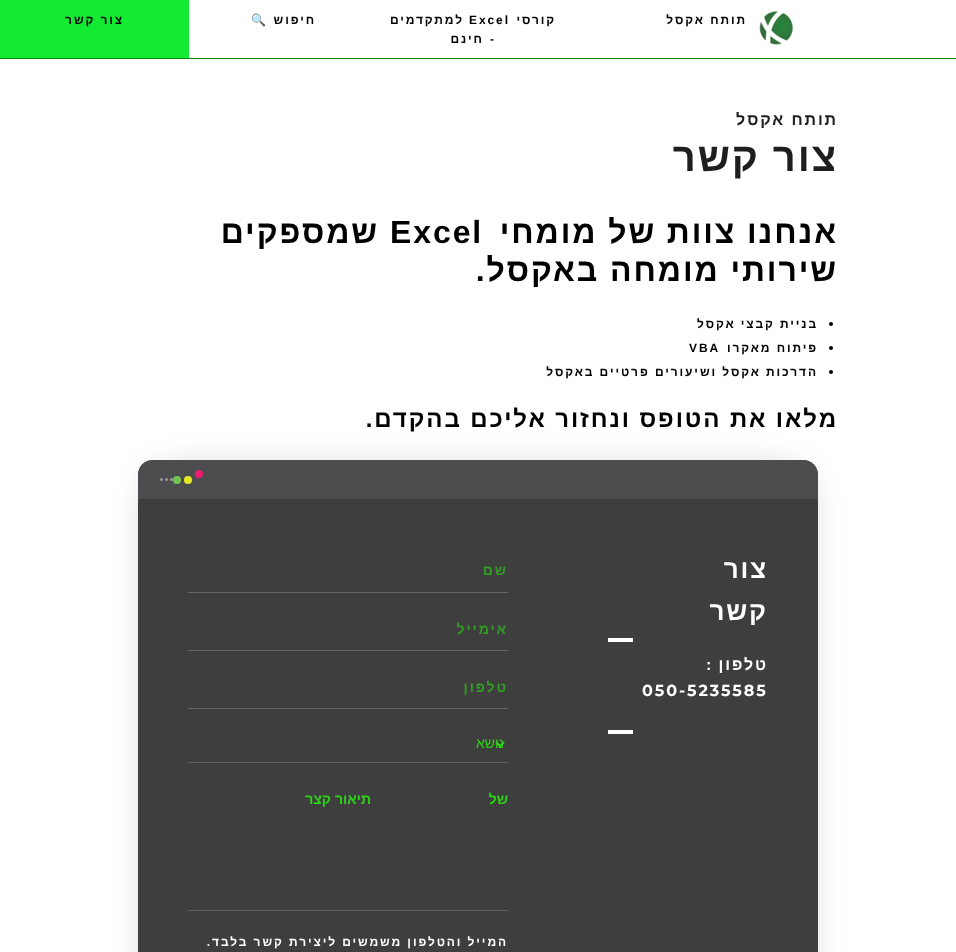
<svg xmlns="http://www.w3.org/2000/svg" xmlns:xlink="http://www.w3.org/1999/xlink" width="956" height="952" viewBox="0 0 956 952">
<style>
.cls-1{font:bold 12px Liberation Sans;letter-spacing:1.9px;direction:rtl;fill:#000000}
.cls-2{font:bold 12px Liberation Sans;letter-spacing:1.9px;fill:#000000}
.cls-3{font:bold 12px Noto Color Emoji;letter-spacing:1.9px;direction:rtl;fill:#000000}
.cls-4{font:bold 16px Liberation Sans;letter-spacing:1.9px;direction:rtl;fill:#1e1e1e}
.cls-5{font:bold 40px Liberation Sans;letter-spacing:1.9px;direction:rtl;fill:#1e1e1e}
.cls-6{font:bold 32px Liberation Sans;letter-spacing:1.9px;direction:rtl;fill:#000000}
.cls-7{font:bold 32px Liberation Sans;letter-spacing:1.9px;fill:#000000}
.cls-8{font:bold 24px Liberation Sans;letter-spacing:1.9px;direction:rtl;fill:#000000}
.cls-9{font:bold 26px Liberation Sans;letter-spacing:1.9px;direction:rtl;fill:#ffffff}
.cls-10{font:bold 16px Liberation Sans;letter-spacing:1.9px;direction:rtl;fill:#ffffff}
.cls-11{font:bold 16px Montserrat;letter-spacing:1.9px;fill:#ffffff}
.cls-12{font:bold 14px Liberation Sans;letter-spacing:1.9px;direction:rtl;fill:#339c25}
.cls-13{font:14px Liberation Sans;direction:rtl;fill:#2cd416}
.cls-14{font:bold 14px Liberation Sans;direction:rtl;fill:#2cd416}
.cls-15{font:bold 12px Liberation Sans;letter-spacing:1.9px;direction:rtl;fill:#ffffff}
</style>
<rect width="100%" height="100%" fill="#ffffff"/>
<rect fill="#008000" x="0" y="58" width="956" height="1"/>
<image xlink:href="image0.png" x="759" y="11" width="34" height="34"/>
<rect fill="#13eb33" x="0" y="0" width="189" height="58"/>
<circle fill="#000000" cx="831" cy="324" r="2"/>
<circle fill="#000000" cx="831" cy="348" r="2"/>
<circle fill="#000000" cx="831" cy="372" r="2"/>
<rect fill="#000000" fill-opacity="0.4" filter="blur(20px)" x="158" y="480" width="640" height="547" rx="15"/>
<rect fill="#3e3e3e" x="138" y="460" width="680" height="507" rx="15"/>
<path fill="#4d4d4f" d="M153 460H803C811.5 460 818 466.5 818 475V499H138V475C138 466.5 144.5 460 153 460Z"/>
<circle fill="#ed1c6f" cx="199" cy="474" r="4"/>
<circle fill="#e8e925" cx="188" cy="480" r="4"/>
<circle fill="#74c54f" cx="177" cy="480" r="4"/>
<circle fill="#999999" cx="171.5" cy="479.5" r="1.5"/>
<circle fill="#999999" cx="166.5" cy="479.5" r="1.5"/>
<circle fill="#999999" cx="161.5" cy="479.5" r="1.5"/>
<rect fill="#ffffff" x="608" y="638" width="25" height="4"/>
<rect fill="#ffffff" x="608" y="730" width="25" height="4"/>
<rect fill="#666666" x="188" y="592" width="320" height="1"/>
<rect fill="#666666" x="188" y="650" width="320" height="1"/>
<rect fill="#666666" x="188" y="708" width="320" height="1"/>
<rect fill="#5e5e5e" x="188" y="762" width="320" height="1"/>
<path fill="none" stroke="#2cd416" stroke-width="2" d="M496 742L500 746L504 742"/>
<rect fill="#5e5e5e" x="188" y="910" width="320" height="1"/>
<text class="cls-1" x="747" y="24">תותח אקסל</text>
<text class="cls-1" x="556" y="24">קורסי</text>
<text class="cls-2" x="469" y="24">Excel</text>
<text class="cls-1" x="464" y="24">למתקדמים</text>
<text class="cls-1" x="496" y="43" word-spacing="1">- חינם</text>
<text class="cls-1" x="316" y="24">חיפוש</text>
<text class="cls-3" x="268" y="24">🔍</text>
<text class="cls-1" x="124" y="24">צור קשר</text>
<text class="cls-4" x="838" y="125">תותח אקסל</text>
<text class="cls-5" x="838" y="171">צור קשר</text>
<text class="cls-6" x="838" y="243">אנחנו צוות של מומחי</text>
<text class="cls-7" x="390" y="243">Excel</text>
<text class="cls-6" x="379" y="243">שמספקים</text>
<text class="cls-6" x="838" y="281">שירותי מומחה באקסל.</text>
<text class="cls-1" x="818" y="328">בניית קבצי אקסל</text>
<text class="cls-1" x="818" y="352">פיתוח מאקרו</text>
<text class="cls-2" x="689" y="352">VBA</text>
<text class="cls-1" x="818" y="376">הדרכות אקסל ושיעורים פרטיים באקסל</text>
<text class="cls-8" x="838" y="427">מלאו את הטופס ונחזור אליכם בהקדם.</text>
<text class="cls-9"><tspan x="768" y="578">צור</tspan><tspan x="768" y="620">קשר</tspan></text>
<text class="cls-10" x="768" y="670" word-spacing="-1">טלפון :</text>
<text class="cls-11" x="642" y="696">050-5235585</text>
<text class="cls-12" x="508" y="575">שם</text>
<text class="cls-12" x="508" y="634">אימייל</text>
<text class="cls-12" x="508" y="692">טלפון</text>
<text class="cls-13" x="504" y="748">נושא</text>
<text class="cls-14" x="508" y="804">של</text>
<text class="cls-14" x="371" y="804">תיאור קצר</text>
<text class="cls-15" x="508" y="946">המייל והטלפון משמשים ליצירת קשר בלבד.</text>
</svg>
